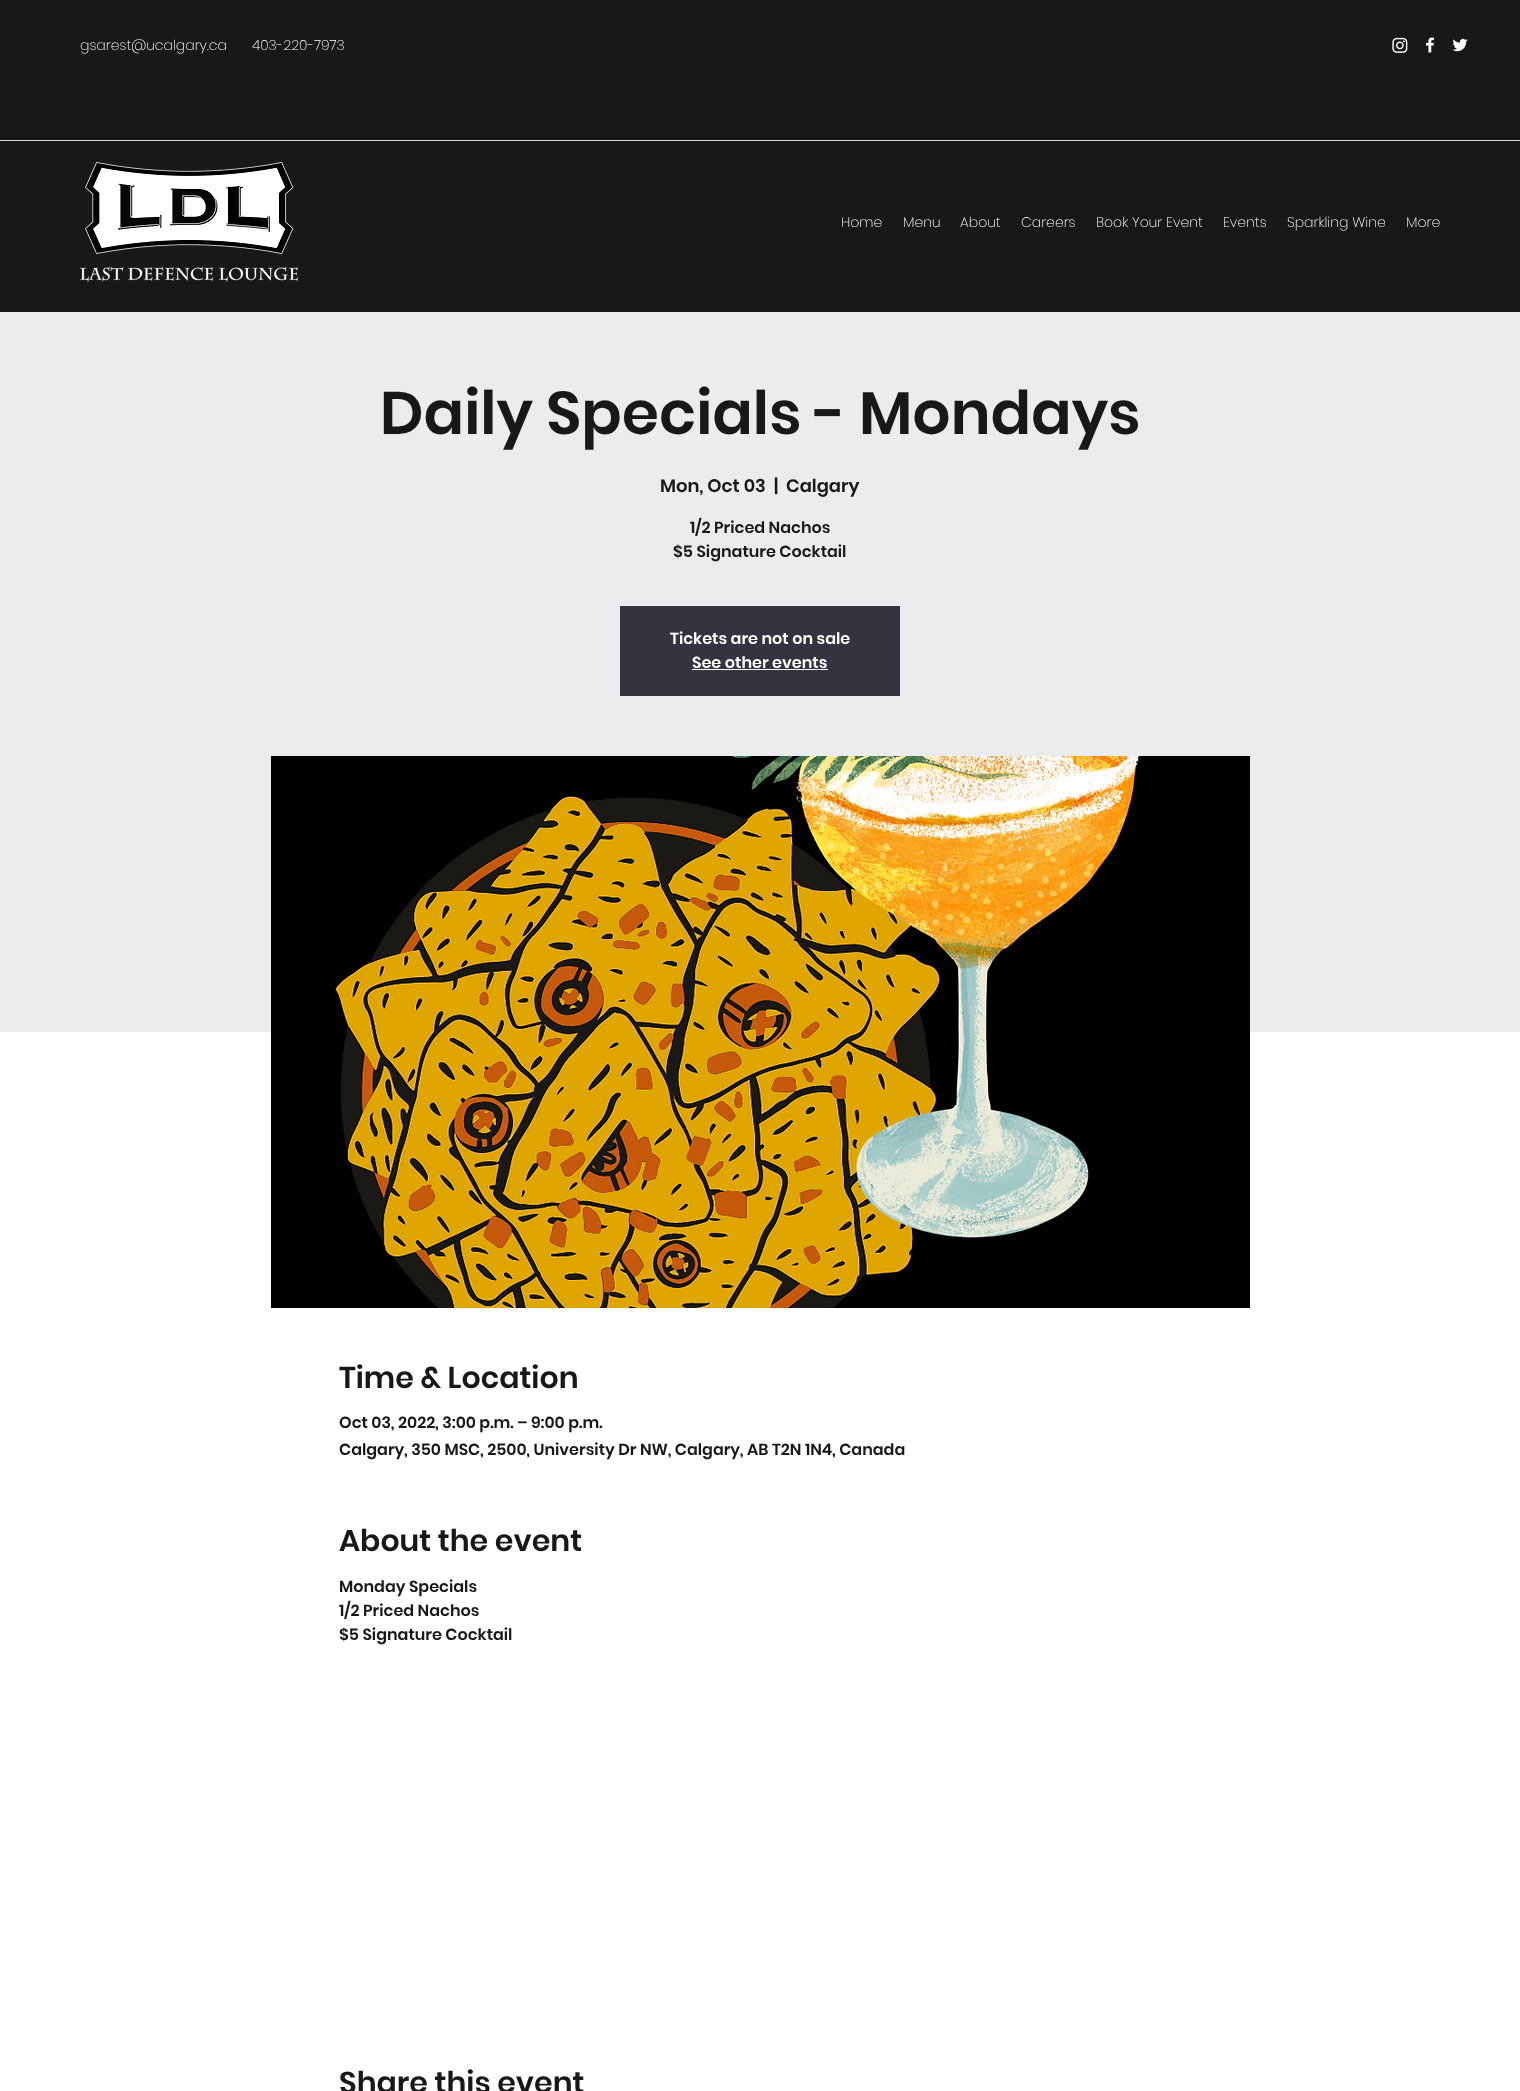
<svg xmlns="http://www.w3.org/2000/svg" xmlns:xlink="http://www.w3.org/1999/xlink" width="1520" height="2091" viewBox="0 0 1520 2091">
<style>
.cls-1{font:200 14px Poppins;fill:#ffffff}
.cls-2{font:600 60px Poppins;fill:#181818}
.cls-3{font:600 18px Poppins;fill:#181818}
.cls-4{font:600 16px Poppins;fill:#181818}
.cls-5{font:600 16px Poppins;fill:#ffffff}
.cls-6{font:600 30px Poppins;fill:#181818}
</style>
<rect width="100%" height="100%" fill="#ffffff"/>
<rect fill="#181818" x="0" y="0" width="1520" height="312"/>
<image xlink:href="image0.png" x="1392" y="37" width="16" height="16"/>
<image xlink:href="image1.png" x="1426" y="37" width="9" height="16"/>
<image xlink:href="image2.png" x="1452" y="38" width="16" height="14"/>
<rect fill="#dcdcdc" x="0" y="140" width="1520" height="1"/>
<image xlink:href="image3.png" x="80" y="162" width="218" height="120"/>
<rect fill="#ebeced" x="0" y="312" width="1520" height="720"/>
<rect fill="#33343f" x="620" y="606" width="280" height="90"/>
<rect fill="#ffffff" x="692" y="669" width="136" height="1"/>
<image xlink:href="image4.png" x="271" y="756" width="979" height="552"/>
<text class="cls-1" x="80" y="50">gsarest@ucalgary.ca</text>
<text class="cls-1" x="252" y="50">403-220-7973</text>
<text class="cls-1" x="841" y="227">Home</text>
<text class="cls-1" x="903" y="227">Menu</text>
<text class="cls-1" x="960" y="227">About</text>
<text class="cls-1" x="1021" y="227">Careers</text>
<text class="cls-1" x="1096" y="227">Book Your Event</text>
<text class="cls-1" x="1223" y="227">Events</text>
<text class="cls-1" x="1287" y="227">Sparkling Wine</text>
<text class="cls-1" x="1406" y="227">More</text>
<text class="cls-2" x="380" y="434">Daily Specials - Mondays</text>
<text class="cls-3" x="660" y="492">Mon, Oct 03</text>
<text class="cls-3" x="774" y="492">|</text>
<text class="cls-3" x="786" y="492">Calgary</text>
<text class="cls-4" x="690" y="533">1/2 Priced Nachos</text>
<text class="cls-4" x="673" y="557">$5 Signature Cocktail</text>
<text class="cls-5" x="670" y="644">Tickets are not on sale</text>
<text class="cls-5" x="692" y="668">See other events</text>
<text class="cls-6" x="339" y="1388">Time &amp; Location</text>
<text class="cls-4"><tspan x="339" y="1428">Oct 03, 2022, 3:00 p.m. – 9:00 p.m.</tspan><tspan x="339" y="1455">Calgary, 350 MSC, 2500, University Dr NW, Calgary, AB T2N 1N4, Canada</tspan></text>
<text class="cls-6" x="339" y="1551">About the event</text>
<text class="cls-4"><tspan x="339" y="1592">Monday Specials</tspan><tspan x="339" y="1616">1/2 Priced Nachos</tspan><tspan x="339" y="1640">$5 Signature Cocktail</tspan></text>
<text class="cls-6" x="339" y="2093">Share this event</text>
</svg>
